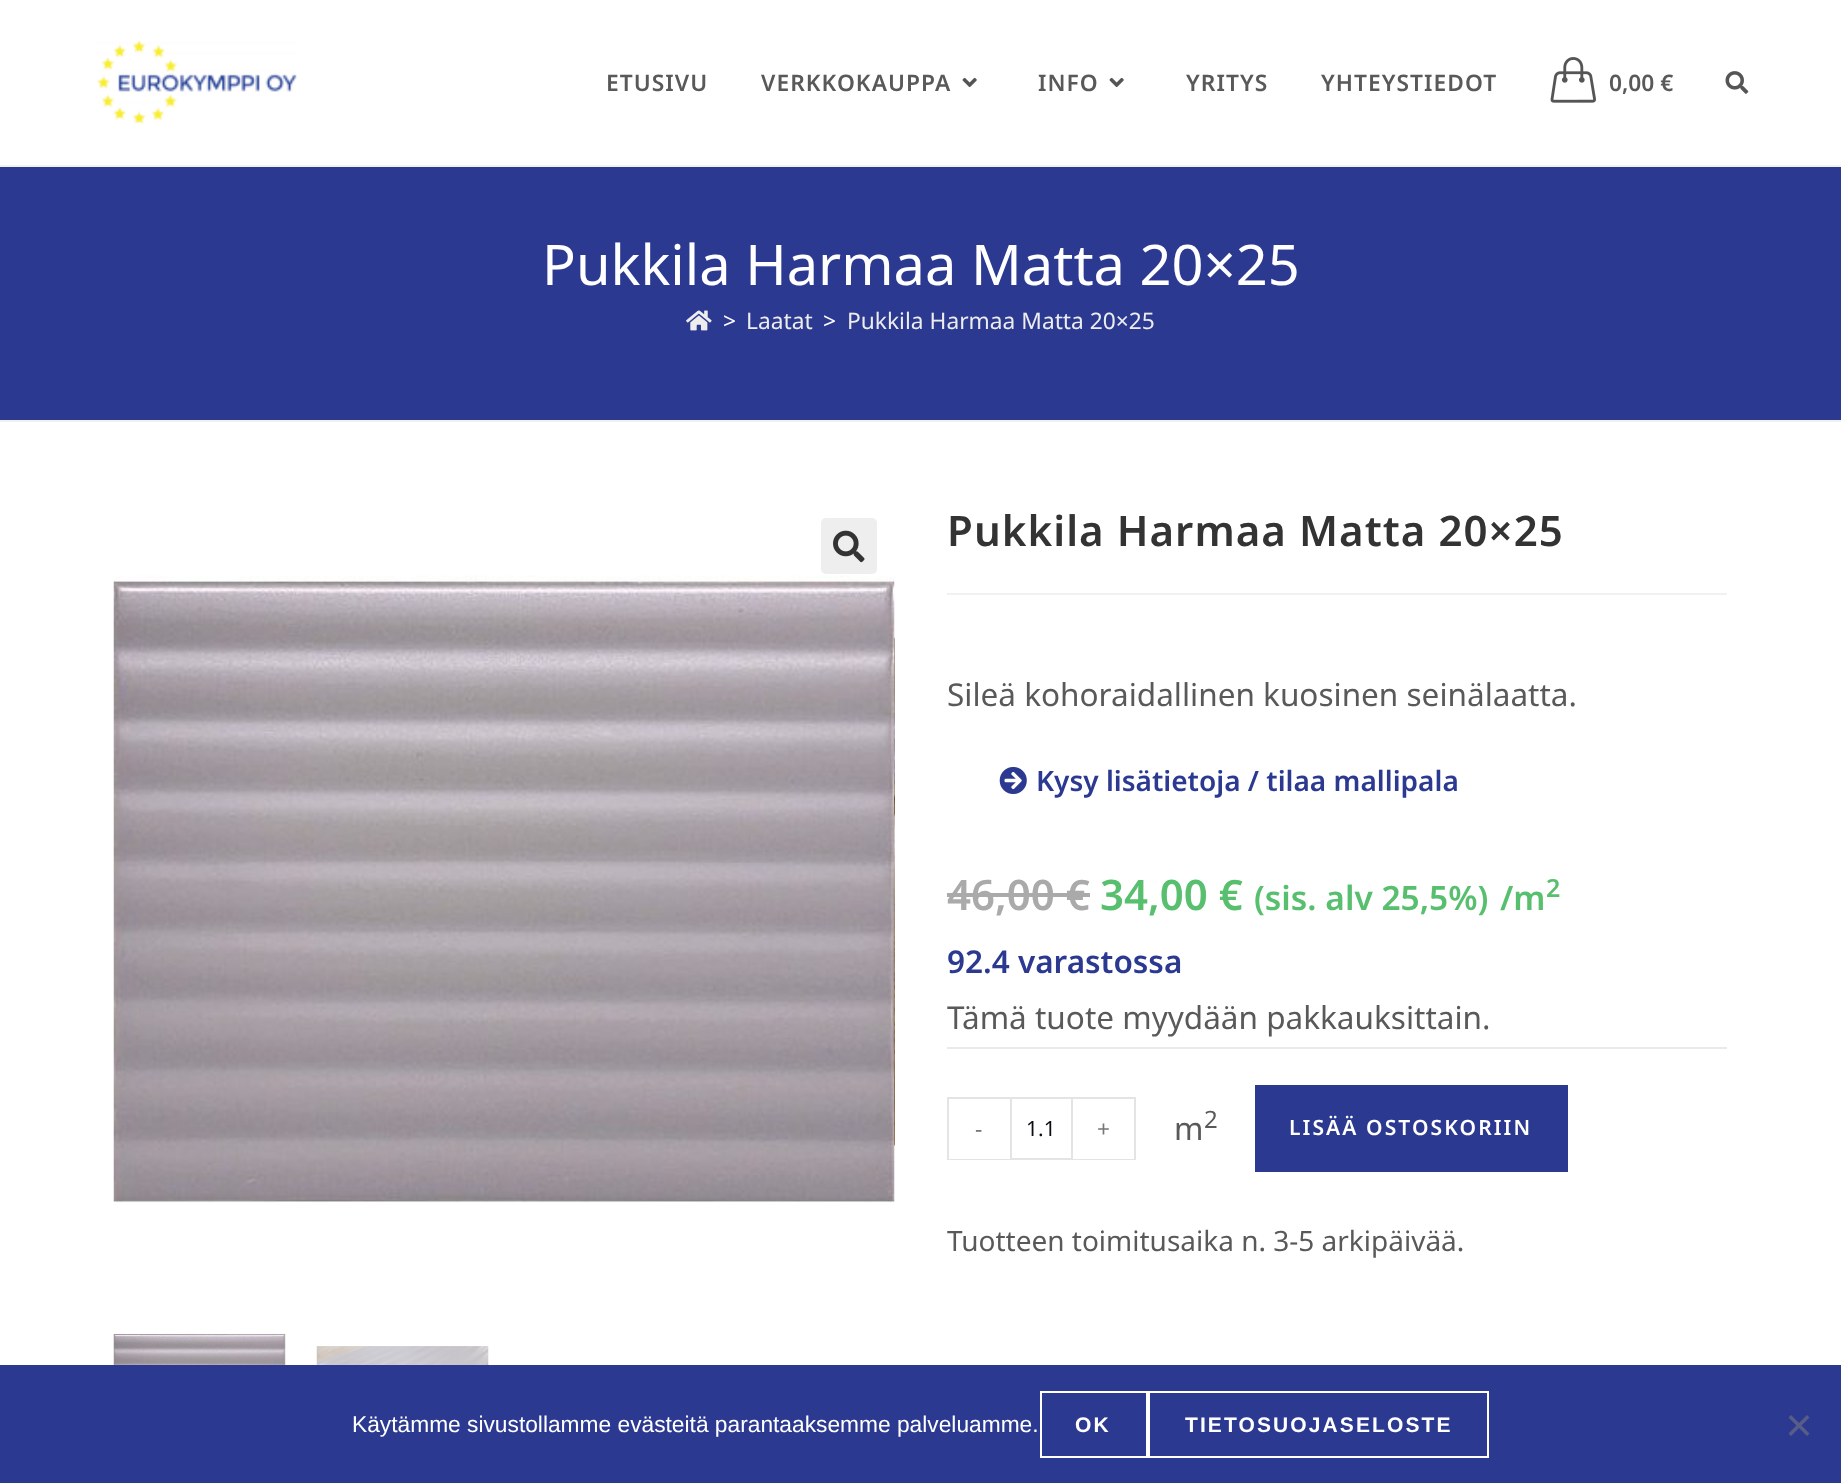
<svg xmlns="http://www.w3.org/2000/svg" xmlns:xlink="http://www.w3.org/1999/xlink" width="1841" height="1483" viewBox="0 0 1841 1483">
<style>
.cls-1{font:600 22.75px Noto Sans;letter-spacing:1.05px;fill:#595959}
.cls-2{font:600 22.75px Noto Sans;fill:#595959}
.cls-3{font:56px Noto Sans;fill:#ffffff}
.cls-4{font:22.75px Noto Sans;fill:#ffffff}
.cls-5{font:22.75px Noto Sans;fill:#ededed}
.cls-6{font:600 42px Noto Sans;letter-spacing:1.05px;fill:#333333}
.cls-7{font:31.5px Noto Sans;fill:#595959}
.cls-8{font:600 28px Noto Sans;fill:#2b3991}
.cls-9{font:600 42px Noto Sans;fill:#aaaaaa}
.cls-10{font:600 42px Noto Sans;fill:#57bf6d}
.cls-11{font:600 33.5px Noto Sans;fill:#57bf6d}
.cls-12{font:600 25px Noto Sans;fill:#57bf6d}
.cls-13{font:600 31.5px Noto Sans;fill:#2b3991}
.cls-14{font:22.75px Noto Sans;fill:#777777}
.cls-15{font:21px Noto Sans;fill:#0e0c12}
.cls-16{font:24px Noto Sans;fill:#595959}
.cls-17{font:600 21px Noto Sans;letter-spacing:2.1px;fill:#ffffff}
.cls-18{font:28px Noto Sans;fill:#595959}
.cls-19{font:22.75px Liberation Sans;fill:#ffffff}
.cls-20{font:bold 21px Liberation Sans;letter-spacing:2.1px;fill:#ffffff}
</style>
<rect width="100%" height="100%" fill="#ffffff"/>
<rect fill="#f1f1f1" x="0" y="165" width="1841" height="2"/>
<image xlink:href="image0.png" x="97" y="40" width="200" height="85"/>
<image xlink:href="image1.png" x="962" y="77" width="15" height="10"/>
<image xlink:href="image1.png" x="1109" y="77" width="15" height="10"/>
<image xlink:href="image2.png" x="1550" y="57" width="46" height="46"/>
<image xlink:href="image3.png" x="1725" y="71" width="24" height="23"/>
<rect fill="#2b3991" x="0" y="167" width="1841" height="253"/>
<rect fill="#f1f1f1" x="0" y="420" width="1841" height="2"/>
<image xlink:href="image4.png" x="686" y="310" width="26" height="21"/>
<rect fill="#eeeeee" x="821" y="518" width="56" height="56" rx="5"/>
<image xlink:href="image5.png" x="833" y="530" width="32" height="33"/>
<image xlink:href="image7.png" x="894" y="636" width="1" height="512"/>
<image xlink:href="image6.png" x="113" y="575" width="782" height="628"/>
<image xlink:href="image8.png" x="113" y="1333" width="173" height="32"/>
<image xlink:href="image9.png" x="316" y="1346" width="173" height="19"/>
<rect fill="#f1f1f1" x="947" y="593" width="780" height="2"/>
<image xlink:href="image10.png" x="999" y="766" width="28" height="29"/>
<rect fill="#aaaaaa" x="947" y="893" width="143" height="4"/>
<rect fill="#eaeaea" x="947" y="1047" width="780" height="2"/>
<rect fill="#e4e4e4" x="947" y="1097" width="63" height="2"/>
<rect fill="#e4e4e4" x="947" y="1159" width="63" height="1"/>
<rect fill="#e4e4e4" x="947" y="1097" width="2" height="63"/>
<rect fill="none" stroke="#e4e4e4" stroke-width="2" x="1011" y="1098" width="61" height="61"/>
<rect fill="#e4e4e4" x="1073" y="1097" width="63" height="2"/>
<rect fill="#e4e4e4" x="1134" y="1097" width="2" height="63"/>
<rect fill="#e4e4e4" x="1073" y="1159" width="63" height="1"/>
<rect fill="#2b3991" x="1255" y="1085" width="313" height="87"/>
<rect fill="#2b3991" x="0" y="1365" width="1841" height="118"/>
<rect fill="none" stroke="#ffffff" stroke-width="2" x="1041" y="1392" width="106" height="65"/>
<rect fill="none" stroke="#ffffff" stroke-width="2" x="1149" y="1392" width="339" height="65"/>
<path fill="#565d89" d="M1807 1415L1809.5 1417.5L1791 1436L1788.5 1433.5Z"/>
<path fill="#565d89" d="M1788.5 1417.5L1791 1415L1809.5 1433.5L1807 1436Z"/>
<text class="cls-1" x="606" y="91">ETUSIVU</text>
<text class="cls-1" x="761" y="91">VERKKOKAUPPA</text>
<text class="cls-1" x="1038" y="91">INFO</text>
<text class="cls-1" x="1186" y="91">YRITYS</text>
<text class="cls-1" x="1321" y="91">YHTEYSTIEDOT</text>
<text class="cls-2" x="1609" y="91">0,00 €</text>
<text class="cls-3" x="542" y="285">Pukkila Harmaa Matta 20×25</text>
<text class="cls-4" x="723" y="329">&gt;</text>
<text class="cls-5" x="746" y="329">Laatat</text>
<text class="cls-4" x="823" y="329">&gt;</text>
<text class="cls-5" x="847" y="329">Pukkila Harmaa Matta 20×25</text>
<text class="cls-6" x="947" y="546">Pukkila Harmaa Matta 20×25</text>
<text class="cls-7" x="947" y="706">Sileä kohoraidallinen kuosinen seinälaatta.</text>
<text class="cls-8" x="1036" y="791">Kysy lisätietoja / tilaa mallipala</text>
<text class="cls-9" x="947" y="910">46,00 €</text>
<text class="cls-10" x="1100" y="910">34,00 €</text>
<text class="cls-11" x="1254" y="910">(sis. alv 25,5%)</text>
<text class="cls-11" x="1500" y="910">/m</text>
<text class="cls-12" x="1546" y="897">2</text>
<text class="cls-13" x="947" y="973">92.4 varastossa</text>
<text class="cls-7" x="947" y="1029">Tämä tuote myydään pakkauksittain.</text>
<text class="cls-14" x="975" y="1137">-</text>
<text class="cls-15" x="1026" y="1136">1.1</text>
<text class="cls-14" x="1097" y="1137">+</text>
<text class="cls-16" x="1204" y="1128">2</text>
<text class="cls-7" x="1174" y="1140">m</text>
<text class="cls-17" x="1289" y="1135">LISÄÄ OSTOSKORIIN</text>
<text class="cls-18" x="947" y="1251">Tuotteen toimitusaika n. 3-5 arkipäivää.</text>
<text class="cls-19" x="352" y="1432">Käytämme sivustollamme evästeitä parantaaksemme palveluamme.</text>
<text class="cls-20" x="1075" y="1432">OK</text>
<text class="cls-20" x="1185" y="1432">TIETOSUOJASELOSTE</text>
</svg>
